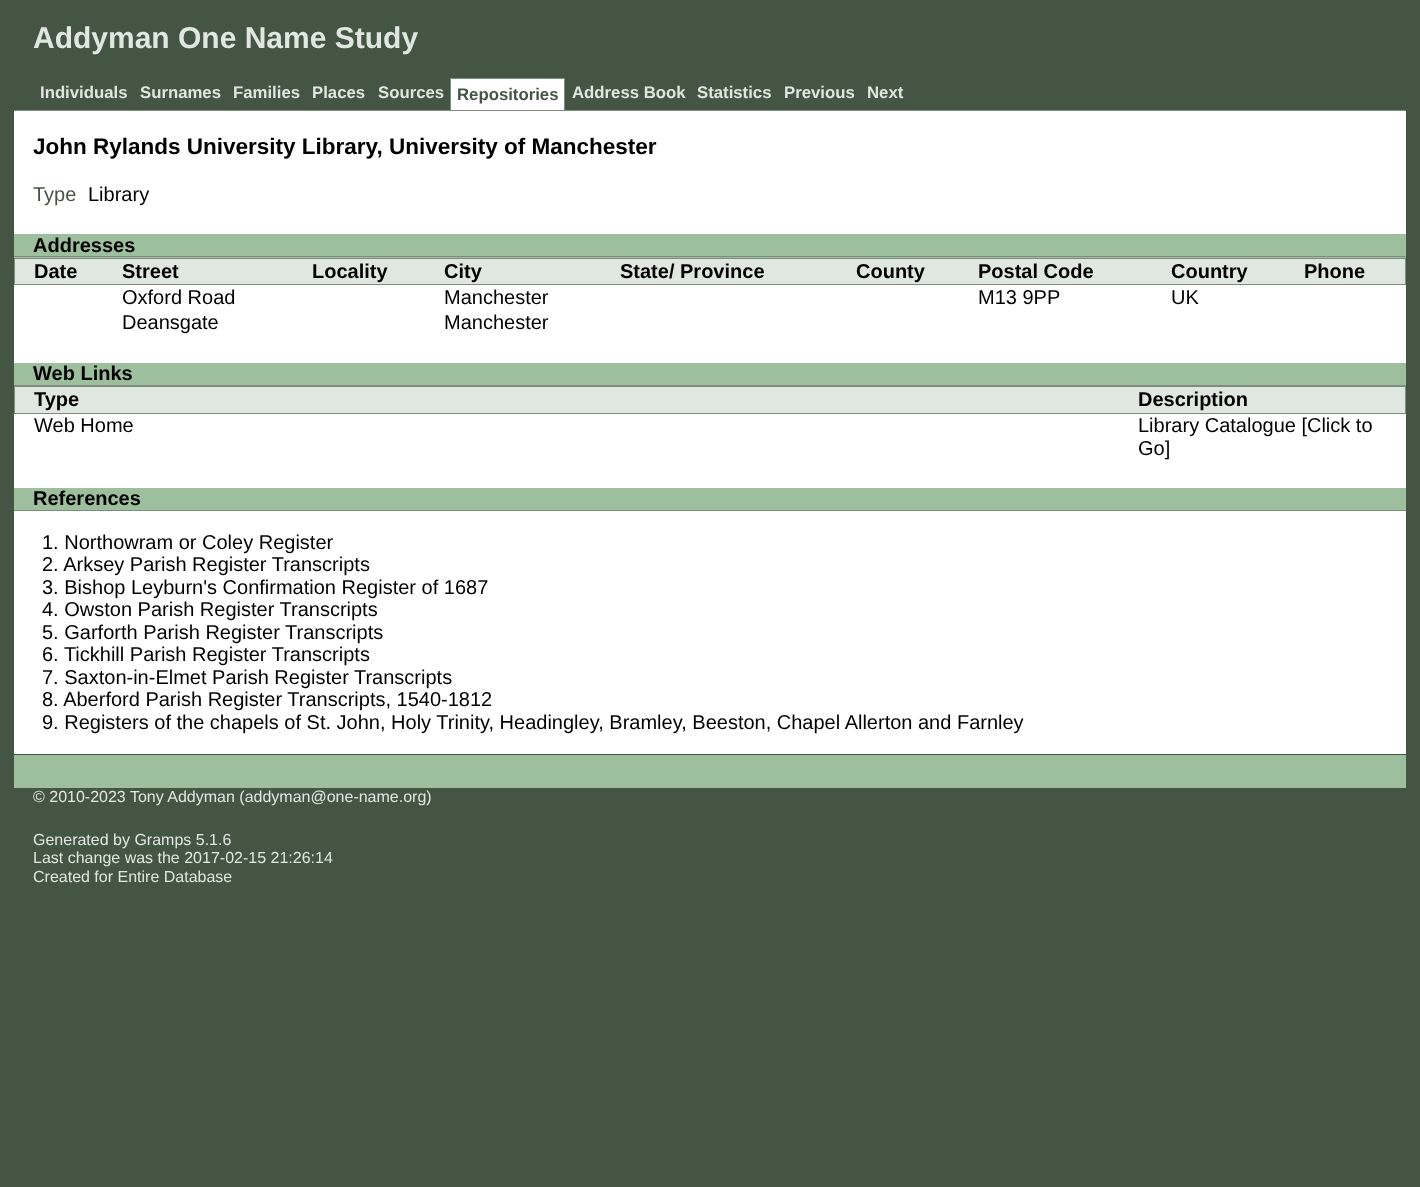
<svg xmlns="http://www.w3.org/2000/svg" xmlns:xlink="http://www.w3.org/1999/xlink" width="1420" height="1187" viewBox="0 0 1420 1187">
<style>
.cls-1{font:bold 30px Liberation Sans;fill:#e0e6e0}
.cls-2{font:bold 16.75px Liberation Sans;fill:#e0e6e0}
.cls-3{font:bold 16.75px Liberation Sans;fill:#445544}
.cls-4{font:bold 22.5px Liberation Sans;fill:#000000}
.cls-5{font:20px Liberation Sans;fill:#445544}
.cls-6{font:20px Liberation Sans;fill:#000000}
.cls-7{font:bold 20px Liberation Sans;fill:#000000}
.cls-8{font:16px Liberation Sans;fill:#e0e6e0}
</style>
<rect width="100%" height="100%" fill="#445544"/>
<rect fill="#ffffff" x="451" y="79" width="113" height="31"/>
<rect fill="#7c8f7c" x="450" y="78" width="115" height="1"/>
<rect fill="#7c8f7c" x="564" y="78" width="1" height="32"/>
<rect fill="#7c8f7c" x="450" y="78" width="1" height="32"/>
<rect fill="#ffffff" x="14" y="111" width="1392" height="643"/>
<rect fill="#7c8f7c" x="14" y="110" width="1392" height="1"/>
<rect fill="#9dbf9d" x="14" y="234" width="1392" height="24"/>
<rect fill="#7c8f7c" x="14" y="256" width="1392" height="1"/>
<rect fill="#e0e6e0" x="15" y="259" width="1390" height="25"/>
<rect fill="#7c8f7c" x="14" y="258" width="1392" height="1"/>
<rect fill="#7c8f7c" x="1405" y="258" width="1" height="27"/>
<rect fill="#7c8f7c" x="14" y="284" width="1392" height="1"/>
<rect fill="#7c8f7c" x="14" y="258" width="1" height="27"/>
<rect fill="#9dbf9d" x="14" y="363" width="1392" height="22"/>
<rect fill="#7c8f7c" x="14" y="385" width="1392" height="1"/>
<rect fill="#e0e6e0" x="15" y="387" width="1390" height="26"/>
<rect fill="#7c8f7c" x="14" y="386" width="1392" height="1"/>
<rect fill="#7c8f7c" x="1405" y="386" width="1" height="28"/>
<rect fill="#7c8f7c" x="14" y="413" width="1392" height="1"/>
<rect fill="#7c8f7c" x="14" y="386" width="1" height="28"/>
<rect fill="#9dbf9d" x="14" y="488" width="1392" height="22"/>
<rect fill="#7c8f7c" x="14" y="510" width="1392" height="1"/>
<rect fill="#9dbf9d" x="14" y="755" width="1392" height="33"/>
<text class="cls-1" x="33" y="48">Addyman One Name Study</text>
<text class="cls-2" x="40" y="98">Individuals</text>
<text class="cls-2" x="140" y="98">Surnames</text>
<text class="cls-2" x="233" y="98">Families</text>
<text class="cls-2" x="312" y="98">Places</text>
<text class="cls-2" x="378" y="98">Sources</text>
<text class="cls-3" x="457" y="100">Repositories</text>
<text class="cls-2" x="572" y="98">Address Book</text>
<text class="cls-2" x="697" y="98">Statistics</text>
<text class="cls-2" x="784" y="98">Previous</text>
<text class="cls-2" x="867" y="98">Next</text>
<text class="cls-4" x="33" y="154">John Rylands University Library, University of Manchester</text>
<text class="cls-5" x="33" y="201">Type</text>
<text class="cls-6" x="88" y="201">Library</text>
<text class="cls-7" x="33" y="252">Addresses</text>
<text class="cls-7" x="34" y="278">Date</text>
<text class="cls-7" x="122" y="278">Street</text>
<text class="cls-7" x="312" y="278">Locality</text>
<text class="cls-7" x="444" y="278">City</text>
<text class="cls-7" x="620" y="278">State/ Province</text>
<text class="cls-7" x="856" y="278">County</text>
<text class="cls-7" x="978" y="278">Postal Code</text>
<text class="cls-7" x="1171" y="278">Country</text>
<text class="cls-7" x="1304" y="278">Phone</text>
<text class="cls-6" x="122" y="304">Oxford Road</text>
<text class="cls-6" x="444" y="304">Manchester</text>
<text class="cls-6" x="978" y="304">M13 9PP</text>
<text class="cls-6" x="1171" y="304">UK</text>
<text class="cls-6" x="122" y="329">Deansgate</text>
<text class="cls-6" x="444" y="329">Manchester</text>
<text class="cls-7" x="33" y="380">Web Links</text>
<text class="cls-7" x="34" y="406">Type</text>
<text class="cls-7" x="1138" y="406">Description</text>
<text class="cls-6" x="34" y="432">Web Home</text>
<text class="cls-6"><tspan x="1138" y="432">Library Catalogue [Click to</tspan><tspan x="1138" y="455">Go]</tspan></text>
<text class="cls-7" x="33" y="505">References</text>
<text class="cls-6"><tspan x="42" y="549">1. Northowram or Coley Register</tspan><tspan x="42" y="571">2. Arksey Parish Register Transcripts</tspan><tspan x="42" y="594">3. Bishop Leyburn's Confirmation Register of 1687</tspan><tspan x="42" y="616">4. Owston Parish Register Transcripts</tspan><tspan x="42" y="639">5. Garforth Parish Register Transcripts</tspan><tspan x="42" y="661">6. Tickhill Parish Register Transcripts</tspan><tspan x="42" y="684">7. Saxton-in-Elmet Parish Register Transcripts</tspan><tspan x="42" y="706">8. Aberford Parish Register Transcripts, 1540-1812</tspan><tspan x="42" y="729">9. Registers of the chapels of St. John, Holy Trinity, Headingley, Bramley, Beeston, Chapel Allerton and Farnley</tspan></text>
<text class="cls-8" x="33" y="802">© 2010-2023 Tony Addyman (addyman@one-name.org)</text>
<text class="cls-8"><tspan x="33" y="845">Generated by Gramps 5.1.6</tspan><tspan x="33" y="863">Last change was the 2017-02-15 21:26:14</tspan><tspan x="33" y="882">Created for Entire Database</tspan></text>
</svg>
